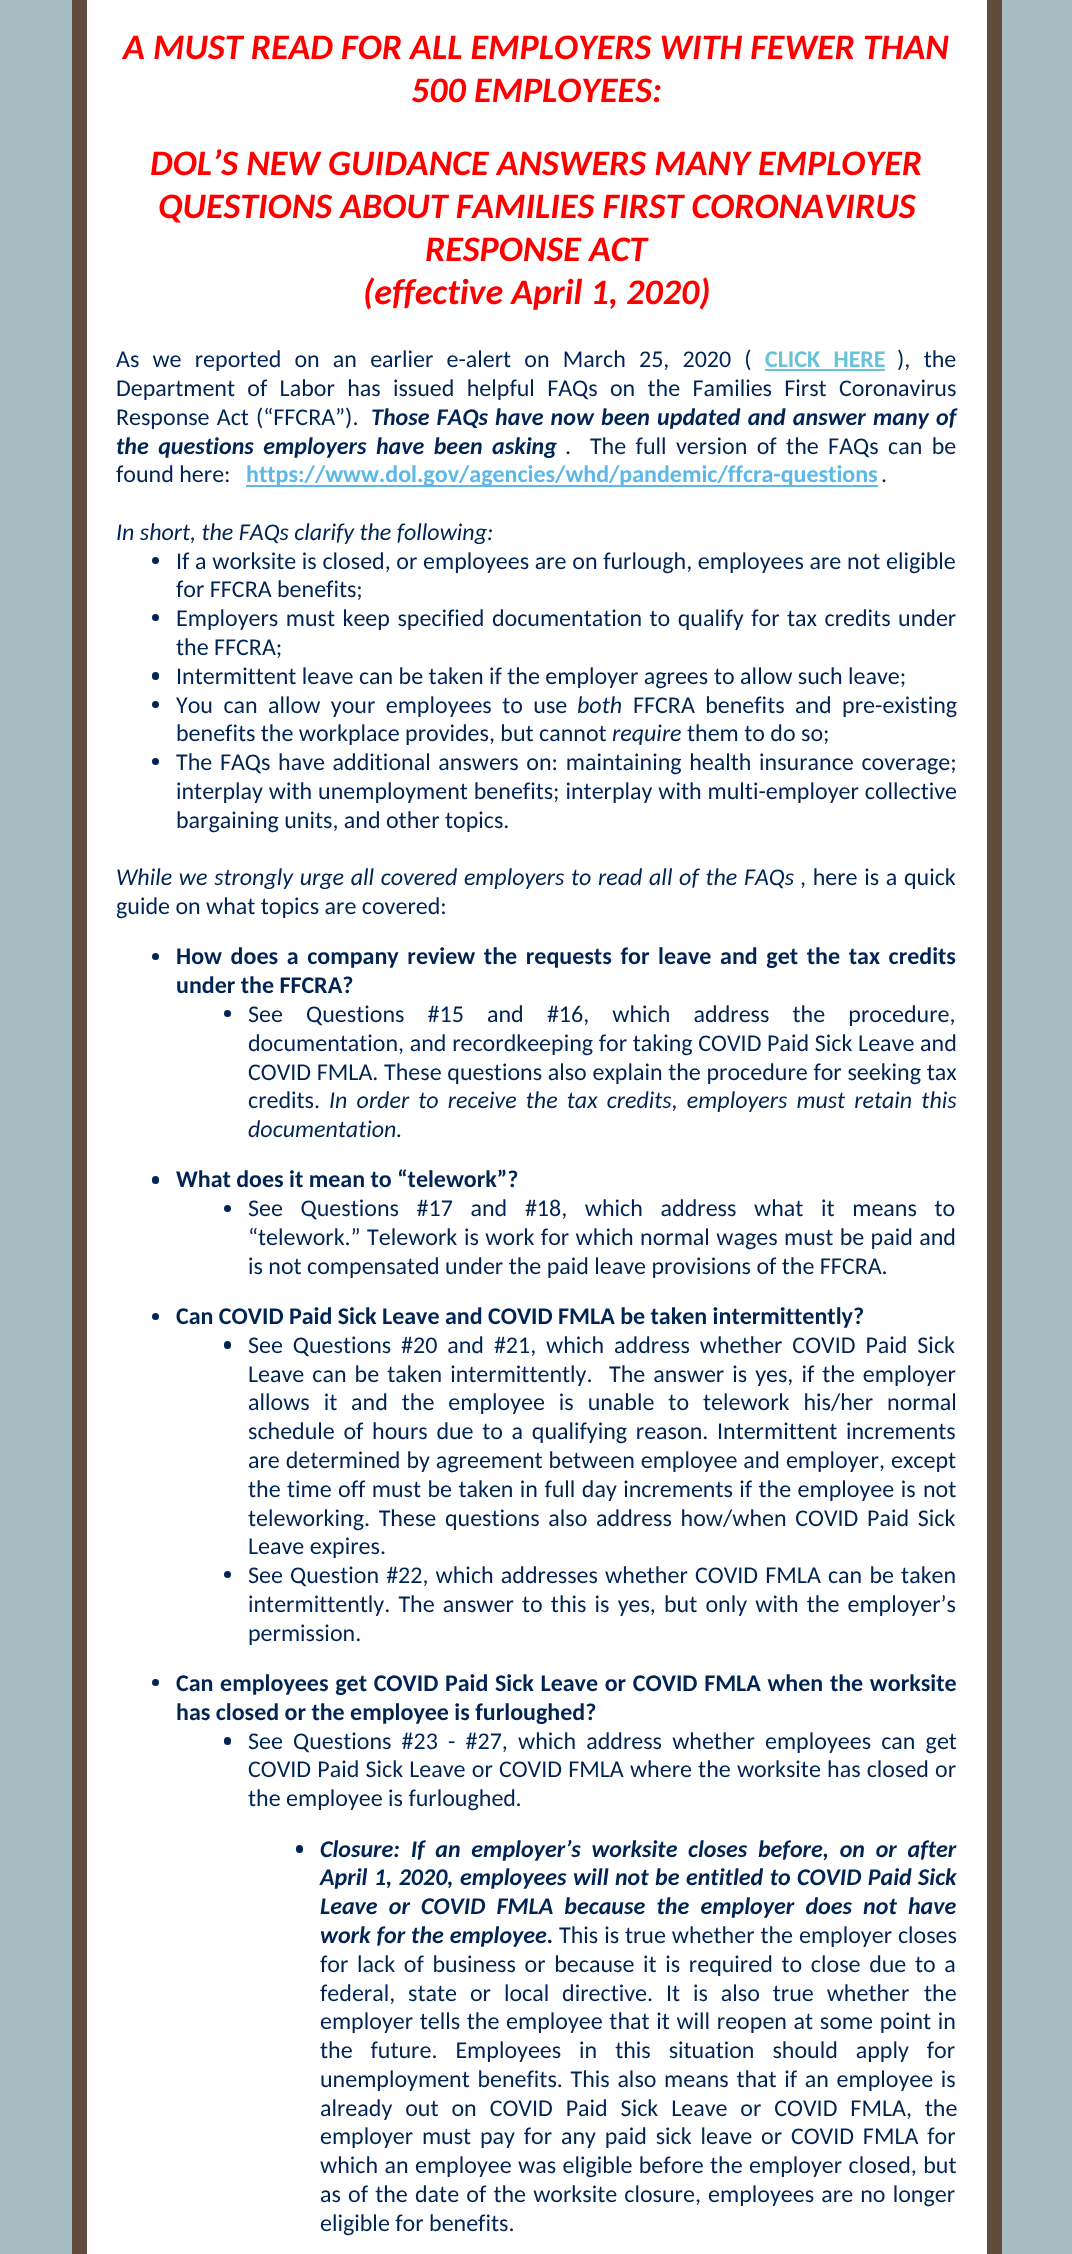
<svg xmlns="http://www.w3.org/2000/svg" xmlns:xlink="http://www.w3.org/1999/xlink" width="1072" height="2254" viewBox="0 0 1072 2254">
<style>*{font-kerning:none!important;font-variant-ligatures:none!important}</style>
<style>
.cls-1{font:italic bold 36px Carlito;fill:#ff0000}
.cls-2{font:24px Carlito;fill:#002453}
.cls-3{font:bold 24px Carlito;fill:#6ac2d5}
.cls-4{font:italic bold 24px Carlito;fill:#002453}
.cls-5{font:bold 24px Carlito;fill:#5cb8e7}
.cls-6{font:italic 24px Carlito;fill:#002453}
.cls-7{font:bold 24px Carlito;fill:#002453}
</style>
<rect width="100%" height="100%" fill="#a4bcc2"/>
<rect fill="#604b3c" x="72" y="0" width="930" height="2254"/>
<rect fill="#ffffff" x="87" y="0" width="900" height="2254"/>
<rect fill="#6ac2d5" x="765" y="369" width="120" height="2"/>
<rect fill="#5cb8e7" x="246" y="485" width="632" height="2"/>
<circle fill="#002453" cx="155.5" cy="560.5" r="3.5"/>
<circle fill="#002453" cx="155.5" cy="617.5" r="3.5"/>
<rect fill="#002453" x="152" y="672" width="7" height="8" rx="3.5"/>
<circle fill="#002453" cx="155.5" cy="704.5" r="3.5"/>
<circle fill="#002453" cx="155.5" cy="761.5" r="3.5"/>
<circle fill="#002453" cx="155.5" cy="956.5" r="3.5"/>
<circle fill="#002453" cx="227.5" cy="1013.5" r="3.5"/>
<rect fill="#002453" x="152" y="1176" width="7" height="8" rx="3.5"/>
<circle fill="#002453" cx="227.5" cy="1208.5" r="3.5"/>
<circle fill="#002453" cx="155.5" cy="1316.5" r="3.5"/>
<rect fill="#002453" x="224" y="1341" width="7" height="8" rx="3.5"/>
<circle fill="#002453" cx="227.5" cy="1574.5" r="3.5"/>
<circle fill="#002453" cx="155.5" cy="1682.5" r="3.5"/>
<rect fill="#002453" x="224" y="1737" width="7" height="8" rx="3.5"/>
<rect fill="#002453" x="296" y="1845" width="7" height="8" rx="3.5"/>
<text class="cls-1" x="123" y="59">A MUST READ FOR ALL EMPLOYERS WITH FEWER THAN</text>
<text class="cls-1" x="411" y="102">500 EMPLOYEES:</text>
<text class="cls-1" x="150" y="175">DOL’S NEW GUIDANCE ANSWERS MANY EMPLOYER</text>
<text class="cls-1" x="158" y="218">QUESTIONS ABOUT FAMILIES FIRST CORONAVIRUS</text>
<text class="cls-1" x="425" y="261">RESPONSE ACT</text>
<text class="cls-1" x="363" y="304">(effective April 1, 2020)</text>
<text class="cls-2" x="116" y="367" word-spacing="7.75">As we reported on an earlier e-alert on March 25, 2020 (</text>
<text class="cls-3" x="765" y="367" word-spacing="8">CLICK HERE</text>
<text class="cls-2" x="897" y="367" word-spacing="8">), the</text>
<text class="cls-2"><tspan x="116" y="396" word-spacing="6.9">Department of Labor has issued helpful FAQs on the Families First Coronavirus</tspan><tspan x="116" y="425" word-spacing="1.75">Response Act (“FFCRA”).</tspan></text>
<text class="cls-4" x="371" y="425" word-spacing="1.75">Those FAQs have now been updated and answer many of</text>
<text class="cls-4" x="116" y="454" word-spacing="4">the questions employers have been asking</text>
<text class="cls-2" xml:space="preserve" x="565" y="454" word-spacing="4">.  The full version of the FAQs can be</text>
<text class="cls-2" x="116" y="482">found here:</text>
<text class="cls-5" x="246" y="482">https://www.dol.gov/agencies/whd/pandemic/ffcra-questions</text>
<text class="cls-2" x="881" y="482">.</text>
<text class="cls-6" x="116" y="540">In short, the FAQs clarify the following:</text>
<text class="cls-2"><tspan x="176" y="569" word-spacing="0.25">If a worksite is closed, or employees are on furlough, employees are not eligible</tspan><tspan x="176" y="597">for FFCRA benefits;</tspan><tspan x="176" y="626" word-spacing="2.1">Employers must keep specified documentation to qualify for tax credits under</tspan><tspan x="176" y="655">the FFCRA;</tspan><tspan x="176" y="684">Intermittent leave can be taken if the employer agrees</tspan></text>
<text class="cls-2" x="714" y="684">to allow such leave;</text>
<text class="cls-2" x="176" y="713" word-spacing="5">You can allow your employees to use</text>
<text class="cls-6" x="577" y="713">both</text>
<text class="cls-2" x="633" y="713" word-spacing="5">FFCRA benefits and pre-existing</text>
<text class="cls-2" x="176" y="741">benefits the workplace provides, but cannot</text>
<text class="cls-6" x="612" y="741">require</text>
<text class="cls-2" x="687" y="741">them to do so;</text>
<text class="cls-2"><tspan x="176" y="770" word-spacing="2.25">The FAQs have additional answers on: maintaining health insurance coverage;</tspan><tspan x="176" y="799" word-spacing="0.5">interplay with unemployment benefits; interplay with multi-employer collective</tspan><tspan x="176" y="828">bargaining units, and other topics.</tspan></text>
<text class="cls-6" x="116" y="885" word-spacing="1.25">While we strongly urge all covered employers to read all of the FAQs</text>
<text class="cls-2" x="800" y="885" word-spacing="1.25">, here is a quick</text>
<text class="cls-2" x="116" y="914">guide on what topics are covered:</text>
<text class="cls-7"><tspan x="176" y="964" word-spacing="3.25">How does a company review the requests for leave and get the tax credits</tspan><tspan x="176" y="993">under the FFCRA?</tspan></text>
<text class="cls-2"><tspan x="248" y="1022" word-spacing="17.75">See Questions #15 and #16, which address the procedure,</tspan><tspan x="248" y="1051" word-spacing="0.25">documentation, and recordkeeping for taking COVID Paid Sick Leave and</tspan><tspan x="248" y="1080" word-spacing="0.25">COVID FMLA. These questions also explain the procedure for seeking tax</tspan><tspan x="248" y="1108">credits.</tspan></text>
<text class="cls-6" x="329" y="1108" word-spacing="3.75">In order to receive the tax credits, employers must retain this</text>
<text class="cls-6" x="248" y="1137">documentation.</text>
<text class="cls-7" x="176" y="1187">What does it mean to “telework”?</text>
<text class="cls-2"><tspan x="248" y="1216" word-spacing="12.25">See Questions #17 and #18, which address what it means to</tspan><tspan x="248" y="1245" word-spacing="1">“telework.” Telework</tspan></text>
<text class="cls-2" x="464" y="1245" word-spacing="1">is work for which normal wages must be paid and</text>
<text class="cls-2" x="248" y="1274">is not compensated under the paid leave provisions of the FFCRA.</text>
<text class="cls-7" x="176" y="1324">Can COVID Paid Sick Leave and COVID FMLA be taken intermittently?</text>
<text class="cls-2"><tspan x="248" y="1353" word-spacing="4.5">See Questions #20 and #21, which address whether COVID Paid Sick</tspan><tspan x="248" y="1382" word-spacing="2.6">Leave can be taken intermittently.</tspan></text>
<text class="cls-2" x="609" y="1382" word-spacing="2.6">The answer is yes, if the employer</text>
<text class="cls-2"><tspan x="248" y="1410" word-spacing="8.5">allows it and the employee is unable to telework his/her normal</tspan><tspan x="248" y="1439" word-spacing="3.25">schedule of hours due to a qualifying reason. Intermittent increments</tspan><tspan x="248" y="1468" word-spacing="0.5">are determined by agreement between employee and employer,</tspan></text>
<text class="cls-2" x="891" y="1468" word-spacing="0.5">except</text>
<text class="cls-2" x="248" y="1497" word-spacing="1">the time off must be taken in full day increments if the employee is</text>
<text class="cls-2" x="923" y="1497" word-spacing="1">not</text>
<text class="cls-2"><tspan x="248" y="1526" word-spacing="3.25">teleworking. These questions also address how/when COVID Paid Sick</tspan><tspan x="248" y="1554">Leave expires.</tspan><tspan x="248" y="1583" word-spacing="1.75">See Question #22, which addresses whether COVID FMLA can be taken</tspan><tspan x="248" y="1612" word-spacing="2.75">intermittently. The answer to this is yes,</tspan></text>
<text class="cls-2" x="664" y="1612" word-spacing="2.75">but only with the employer’s</text>
<text class="cls-2" x="248" y="1641">permission.</text>
<text class="cls-7"><tspan x="176" y="1691" word-spacing="1.25">Can employees get COVID Paid Sick Leave or COVID FMLA when the worksite</tspan><tspan x="176" y="1720">has closed or the employee is furloughed?</tspan></text>
<text class="cls-2"><tspan x="248" y="1749" word-spacing="4.75">See Questions #23 - #27, which address whether employees can get</tspan><tspan x="248" y="1777" word-spacing="0.75">COVID Paid Sick Leave or COVID FMLA where the worksite has closed or</tspan><tspan x="248" y="1806">the employee is furloughed</tspan></text>
<text class="cls-6" x="516" y="1806">.</text>
<text class="cls-4"><tspan x="320" y="1857" word-spacing="5.25">Closure: If an employer’s worksite closes before, on or after</tspan><tspan x="320" y="1885" word-spacing="1">April 1, 2020, employees will not be entitled to COVID Paid Sick</tspan><tspan x="320" y="1914" word-spacing="5.75">Leave or COVID FMLA because the employer does not have</tspan><tspan x="320" y="1943" word-spacing="0.5">work for the employee.</tspan></text>
<text class="cls-2" x="559" y="1943" word-spacing="0.5">This is true whether the employer closes</text>
<text class="cls-2"><tspan x="320" y="1972" word-spacing="3.25">for lack of business or because it is required to close due to a</tspan><tspan x="320" y="2001" word-spacing="7.5">federal, state or local directive. It is also true whether</tspan></text>
<text class="cls-2" x="924" y="2001" word-spacing="7.5">the</text>
<text class="cls-2"><tspan x="320" y="2029" word-spacing="1.25">employer tells the employee that it will reopen at some point in</tspan><tspan x="320" y="2058" word-spacing="12.5">the future. Employees in this situation should apply for</tspan><tspan x="320" y="2087" word-spacing="2.25">unemployment benefits. This also means that if an employee is</tspan><tspan x="320" y="2116" word-spacing="7.5">already out on COVID Paid Sick Leave or COVID FMLA, the</tspan><tspan x="320" y="2144" word-spacing="3.4">employer must pay for any paid sick leave or COVID FMLA for</tspan><tspan x="320" y="2173" word-spacing="1">which an employee was eligible before the employer closed, but</tspan><tspan x="320" y="2202" word-spacing="1.75">as of the date of the worksite closure, employees are no longer</tspan><tspan x="320" y="2231">eligible for benefits.</tspan></text>
</svg>
